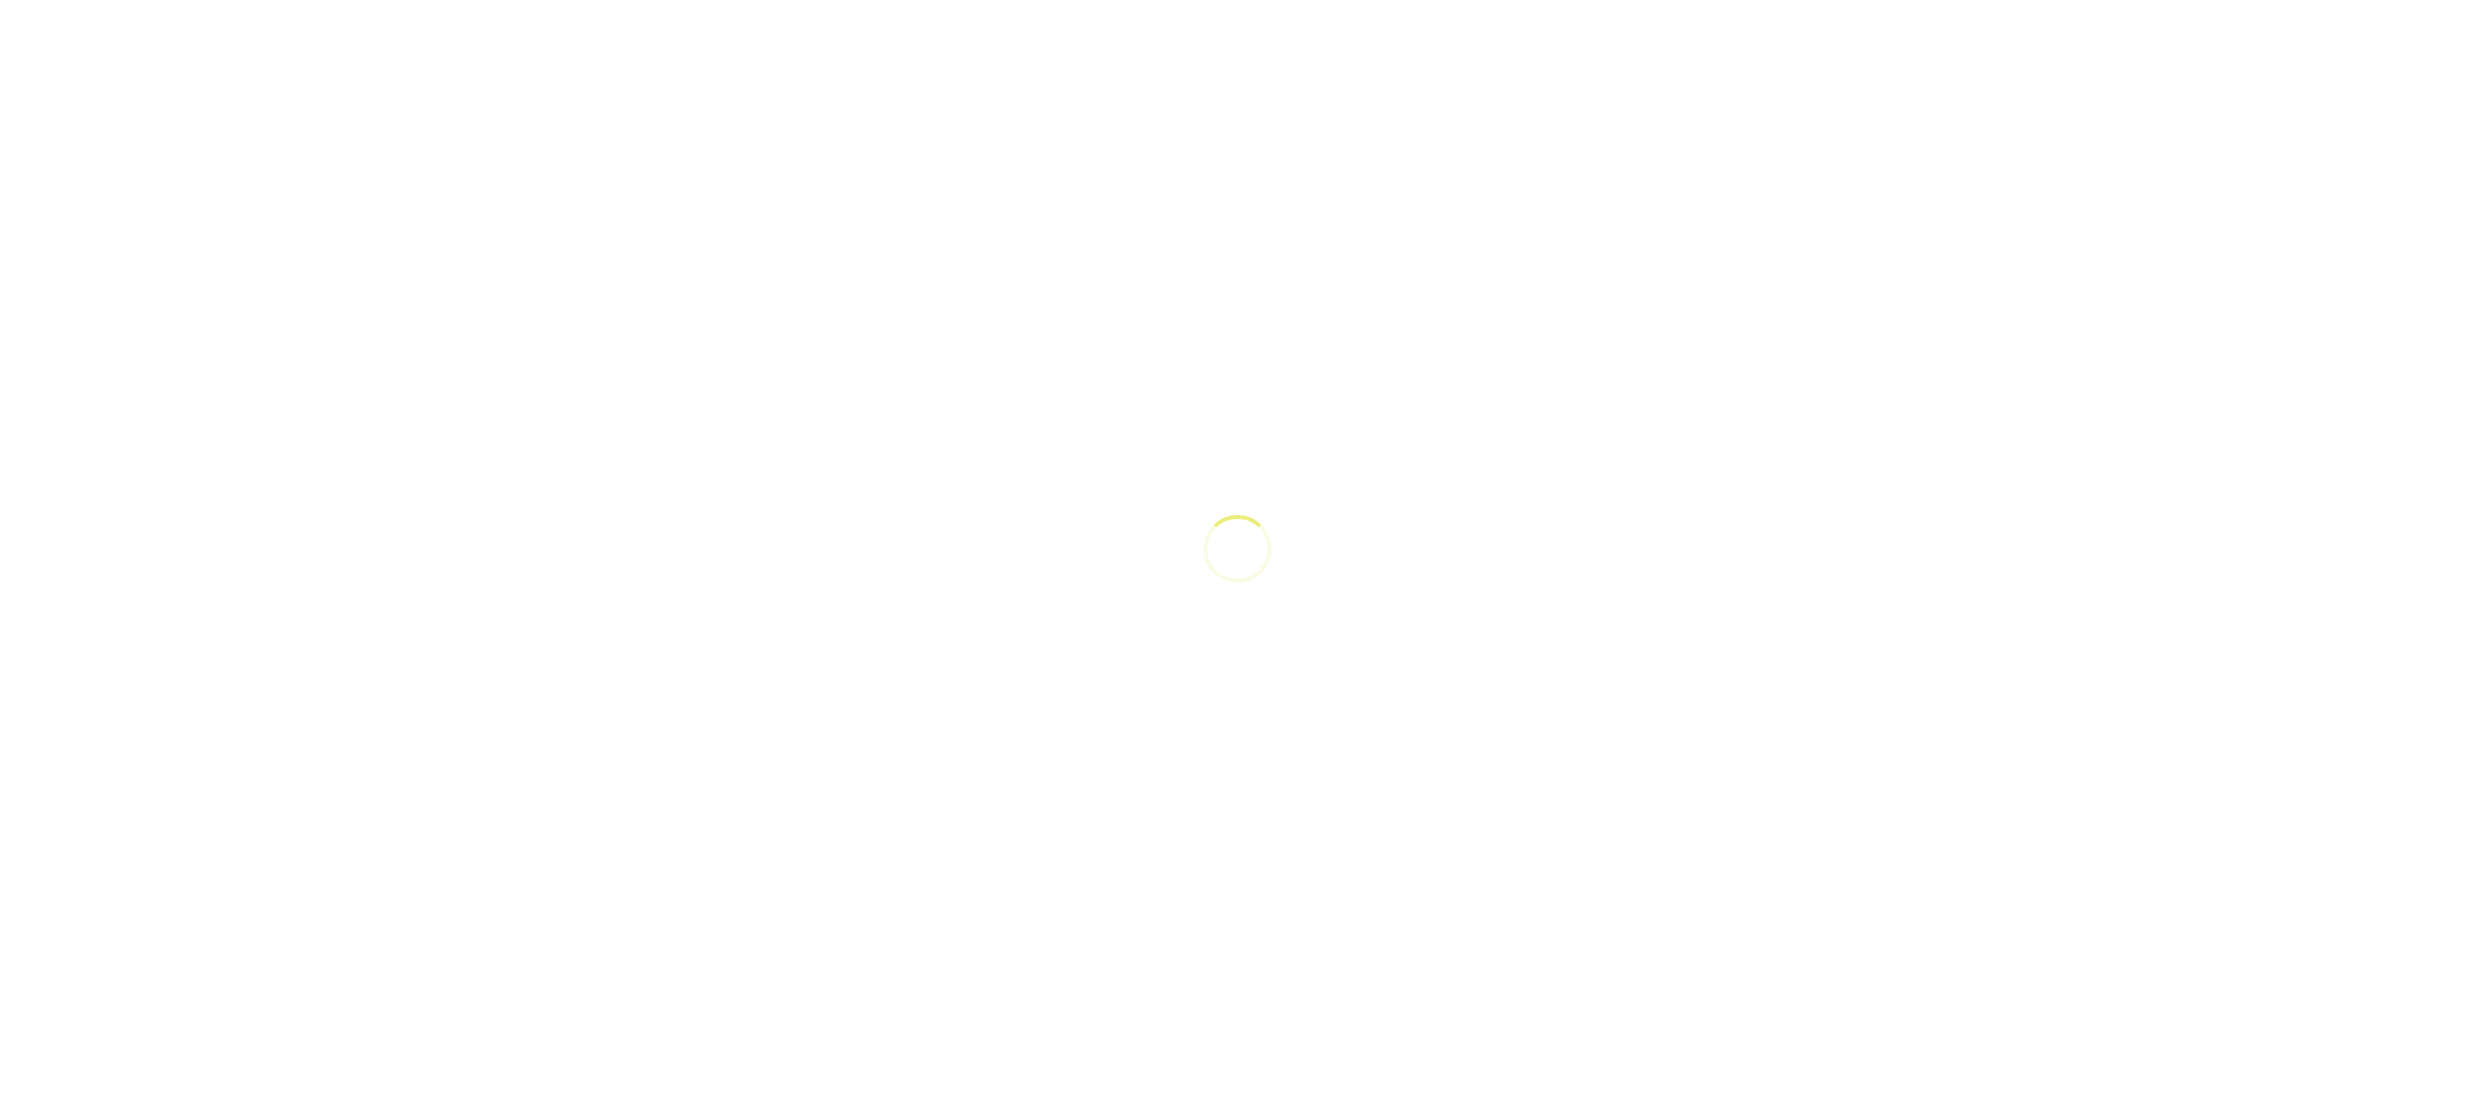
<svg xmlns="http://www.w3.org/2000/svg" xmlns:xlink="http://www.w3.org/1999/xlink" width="2475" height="1096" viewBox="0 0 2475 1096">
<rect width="100%" height="100%" fill="#ffffff"/>
<path fill="none" stroke="#eded7d" stroke-width="3.8" d="M1215 526C1227 514 1248 514 1260 526"/>
<path fill="none" stroke="#eded7d" stroke-opacity="0.2" stroke-width="3.8" d="M1260 526C1266 532 1269.5 540.5 1269.5 549C1269.5 587 1213.5 592.5 1206 555C1204 544.5 1207.5 533.5 1215 526"/>
</svg>
